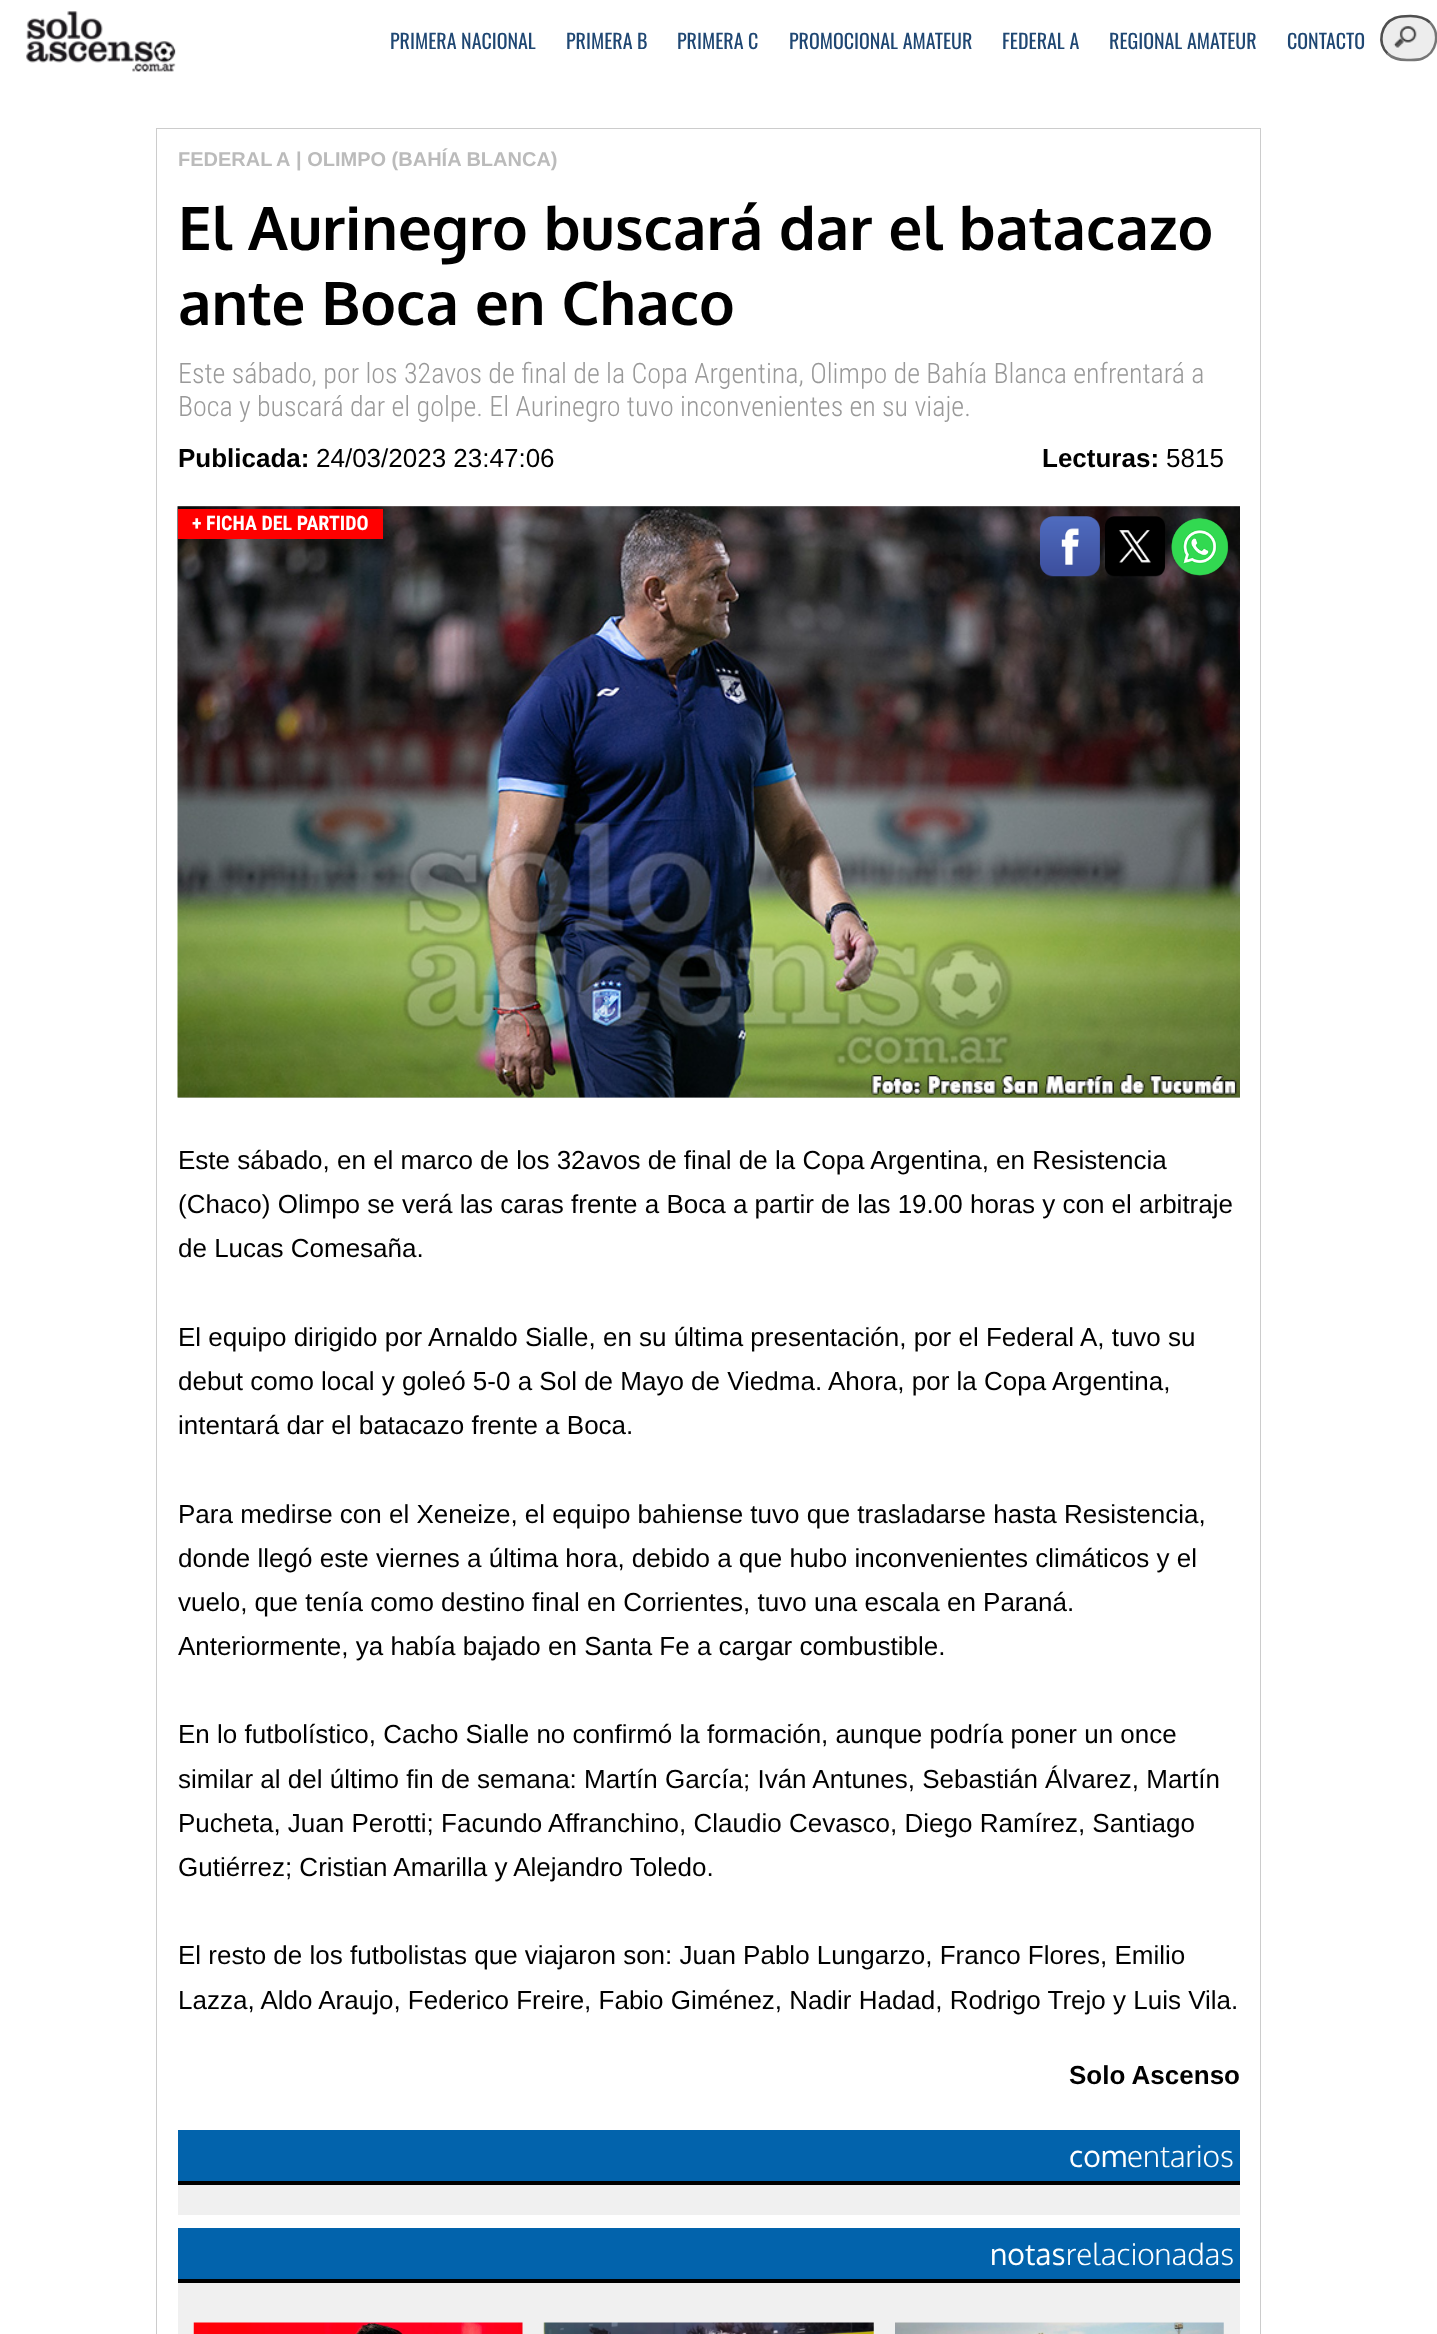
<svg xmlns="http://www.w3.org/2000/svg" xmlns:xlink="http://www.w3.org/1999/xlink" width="1437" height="2334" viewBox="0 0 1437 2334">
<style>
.cls-1{font:20px Oswald;fill:#1f4773}
.cls-2{font:bold 20px Arimo;fill:#bbbbbb}
.cls-3{font:bold 60px Oxygen;fill:#000000}
.cls-4{font:300 28px Roboto Condensed;fill:#999999}
.cls-5{font:bold 26px Arimo;fill:#000000}
.cls-6{font:26px Arimo;fill:#000000}
.cls-7{font:bold 20px Roboto Condensed;fill:#ffffff}
.cls-8{font:30px Oxygen;fill:#ffffff}
.cls-9{font:300 30px Oxygen;fill:#ffffff}
</style>
<rect width="100%" height="100%" fill="#ffffff"/>
<image xlink:href="image0.png" x="26" y="11" width="150" height="61"/>
<rect fill="#ededed" x="1380" y="15" width="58" height="46" rx="23"/>
<image xlink:href="image1.png" x="1393" y="26" width="24" height="23"/>
<path fill="none" stroke="#767676" stroke-width="2.5" d="M1430 22.5C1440.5 33.5 1437 52.5 1422.5 58.5C1417.5 60.5 1412 60 1407 60C1399.5 60 1393 59 1387.5 53.5"/>
<path fill="none" stroke="#4f4f4f" stroke-width="2.5" d="M1387.5 53.5C1377 43 1380.5 24 1395 18C1400 16 1405.5 16 1410.5 16C1418 16 1424.5 17.5 1430 22.5"/>
<rect fill="none" stroke="#cccccc" x="156.5" y="128.5" width="1104" height="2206"/>
<rect fill="#cccccc" x="178" y="506" width="1062" height="592"/>
<image xlink:href="image2.png" x="177" y="506" width="1063" height="592"/>
<rect fill="#ff0000" x="178" y="509" width="205" height="30"/>
<image xlink:href="image3.png" x="1040" y="516" width="60" height="61"/>
<image xlink:href="image4.png" x="1105" y="516" width="60" height="61"/>
<image xlink:href="image5.png" x="1171" y="518" width="58" height="58"/>
<rect fill="#f0f0f0" x="178" y="2185" width="1062" height="30"/>
<rect fill="#0263ac" x="178" y="2130" width="1062" height="51"/>
<rect fill="#000000" x="178" y="2181" width="1062" height="4"/>
<rect fill="#f0f0f0" x="178" y="2283" width="1062" height="51"/>
<rect fill="#0263ac" x="178" y="2228" width="1062" height="51"/>
<rect fill="#000000" x="178" y="2279" width="1062" height="4"/>
<image xlink:href="image6.png" x="193" y="2322" width="330" height="12"/>
<image xlink:href="image7.png" x="543" y="2322" width="331" height="12"/>
<image xlink:href="image8.png" x="895" y="2322" width="329" height="12"/>
<text class="cls-1" x="390" y="49">PRIMERA NACIONAL</text>
<text class="cls-1" x="566" y="49">PRIMERA B</text>
<text class="cls-1" x="677" y="49">PRIMERA C</text>
<text class="cls-1" x="789" y="49">PROMOCIONAL AMATEUR</text>
<text class="cls-1" x="1002" y="49">FEDERAL A</text>
<text class="cls-1" x="1109" y="49">REGIONAL AMATEUR</text>
<text class="cls-1" x="1287" y="49">CONTACTO</text>
<text class="cls-2" x="178" y="166" word-spacing="-1">FEDERAL A</text>
<text class="cls-2" x="296" y="166">| OLIMPO (BAHÍA BLANCA)</text>
<text class="cls-3"><tspan x="178" y="250">El Aurinegro buscará dar el batacazo</tspan><tspan x="178" y="325">ante Boca en Chaco</tspan></text>
<text class="cls-4"><tspan x="178" y="383">Este sábado, por los 32avos de final de la Copa Argentina, Olimpo de Bahía Blanca enfrentará a</tspan><tspan x="178" y="416">Boca y buscará dar el golpe. El Aurinegro tuvo inconvenientes en su viaje.</tspan></text>
<text class="cls-5" x="178" y="467">Publicada:</text>
<text class="cls-6" x="316" y="467">24/03/2023 23:47:06</text>
<text class="cls-5" x="1042" y="467">Lecturas:</text>
<text class="cls-6" x="1166" y="467">5815</text>
<text class="cls-7" x="192" y="530">+ FICHA DEL PARTIDO</text>
<text class="cls-6"><tspan x="178" y="1169">Este sábado, en el marco de los 32avos de final de la Copa Argentina, en Resistencia</tspan><tspan x="178" y="1213">(Chaco) Olimpo se verá las caras frente a Boca a partir de las 19.00 horas y con el arbitraje</tspan><tspan x="178" y="1257">de Lucas Comesaña.</tspan></text>
<text class="cls-6"><tspan x="178" y="1346">El equipo dirigido por Arnaldo Sialle, en su última presentación, por el Federal A, tuvo su</tspan><tspan x="178" y="1390">debut como local y goleó 5-0 a Sol de Mayo de Viedma. Ahora, por la Copa Argentina,</tspan><tspan x="178" y="1434">intentará dar el batacazo frente a Boca.</tspan></text>
<text class="cls-6"><tspan x="178" y="1523">Para medirse con el Xeneize, el equipo bahiense tuvo que trasladarse hasta Resistencia,</tspan><tspan x="178" y="1567">donde llegó este viernes a última hora, debido a que hubo inconvenientes climáticos y el</tspan><tspan x="178" y="1611">vuelo, que tenía como destino final en Corrientes, tuvo una escala en Paraná.</tspan><tspan x="178" y="1655">Anteriormente, ya había bajado en Santa Fe a cargar combustible.</tspan></text>
<text class="cls-6"><tspan x="178" y="1743">En lo futbolístico, Cacho Sialle no confirmó la formación, aunque podría poner un once</tspan><tspan x="178" y="1788">similar al del último fin de semana: Martín García; Iván Antunes, Sebastián Álvarez, Martín</tspan><tspan x="178" y="1832">Pucheta, Juan Perotti; Facundo Affranchino, Claudio Cevasco, Diego Ramírez, Santiago</tspan><tspan x="178" y="1876">Gutiérrez; Cristian Amarilla y Alejandro Toledo.</tspan></text>
<text class="cls-6"><tspan x="178" y="1964">El resto de los futbolistas que viajaron son: Juan Pablo Lungarzo, Franco Flores, Emilio</tspan><tspan x="178" y="2009">Lazza, Aldo Araujo, Federico Freire, Fabio Giménez, Nadir Hadad, Rodrigo Trejo y Luis Vila.</tspan></text>
<text class="cls-5" x="1069" y="2084">Solo Ascenso</text>
<text class="cls-8" x="1069" y="2167">com</text>
<text class="cls-9" x="1127" y="2167">entarios</text>
<text class="cls-8" x="990" y="2265">notas</text>
<text class="cls-9" x="1066" y="2265">relacionadas</text>
</svg>
